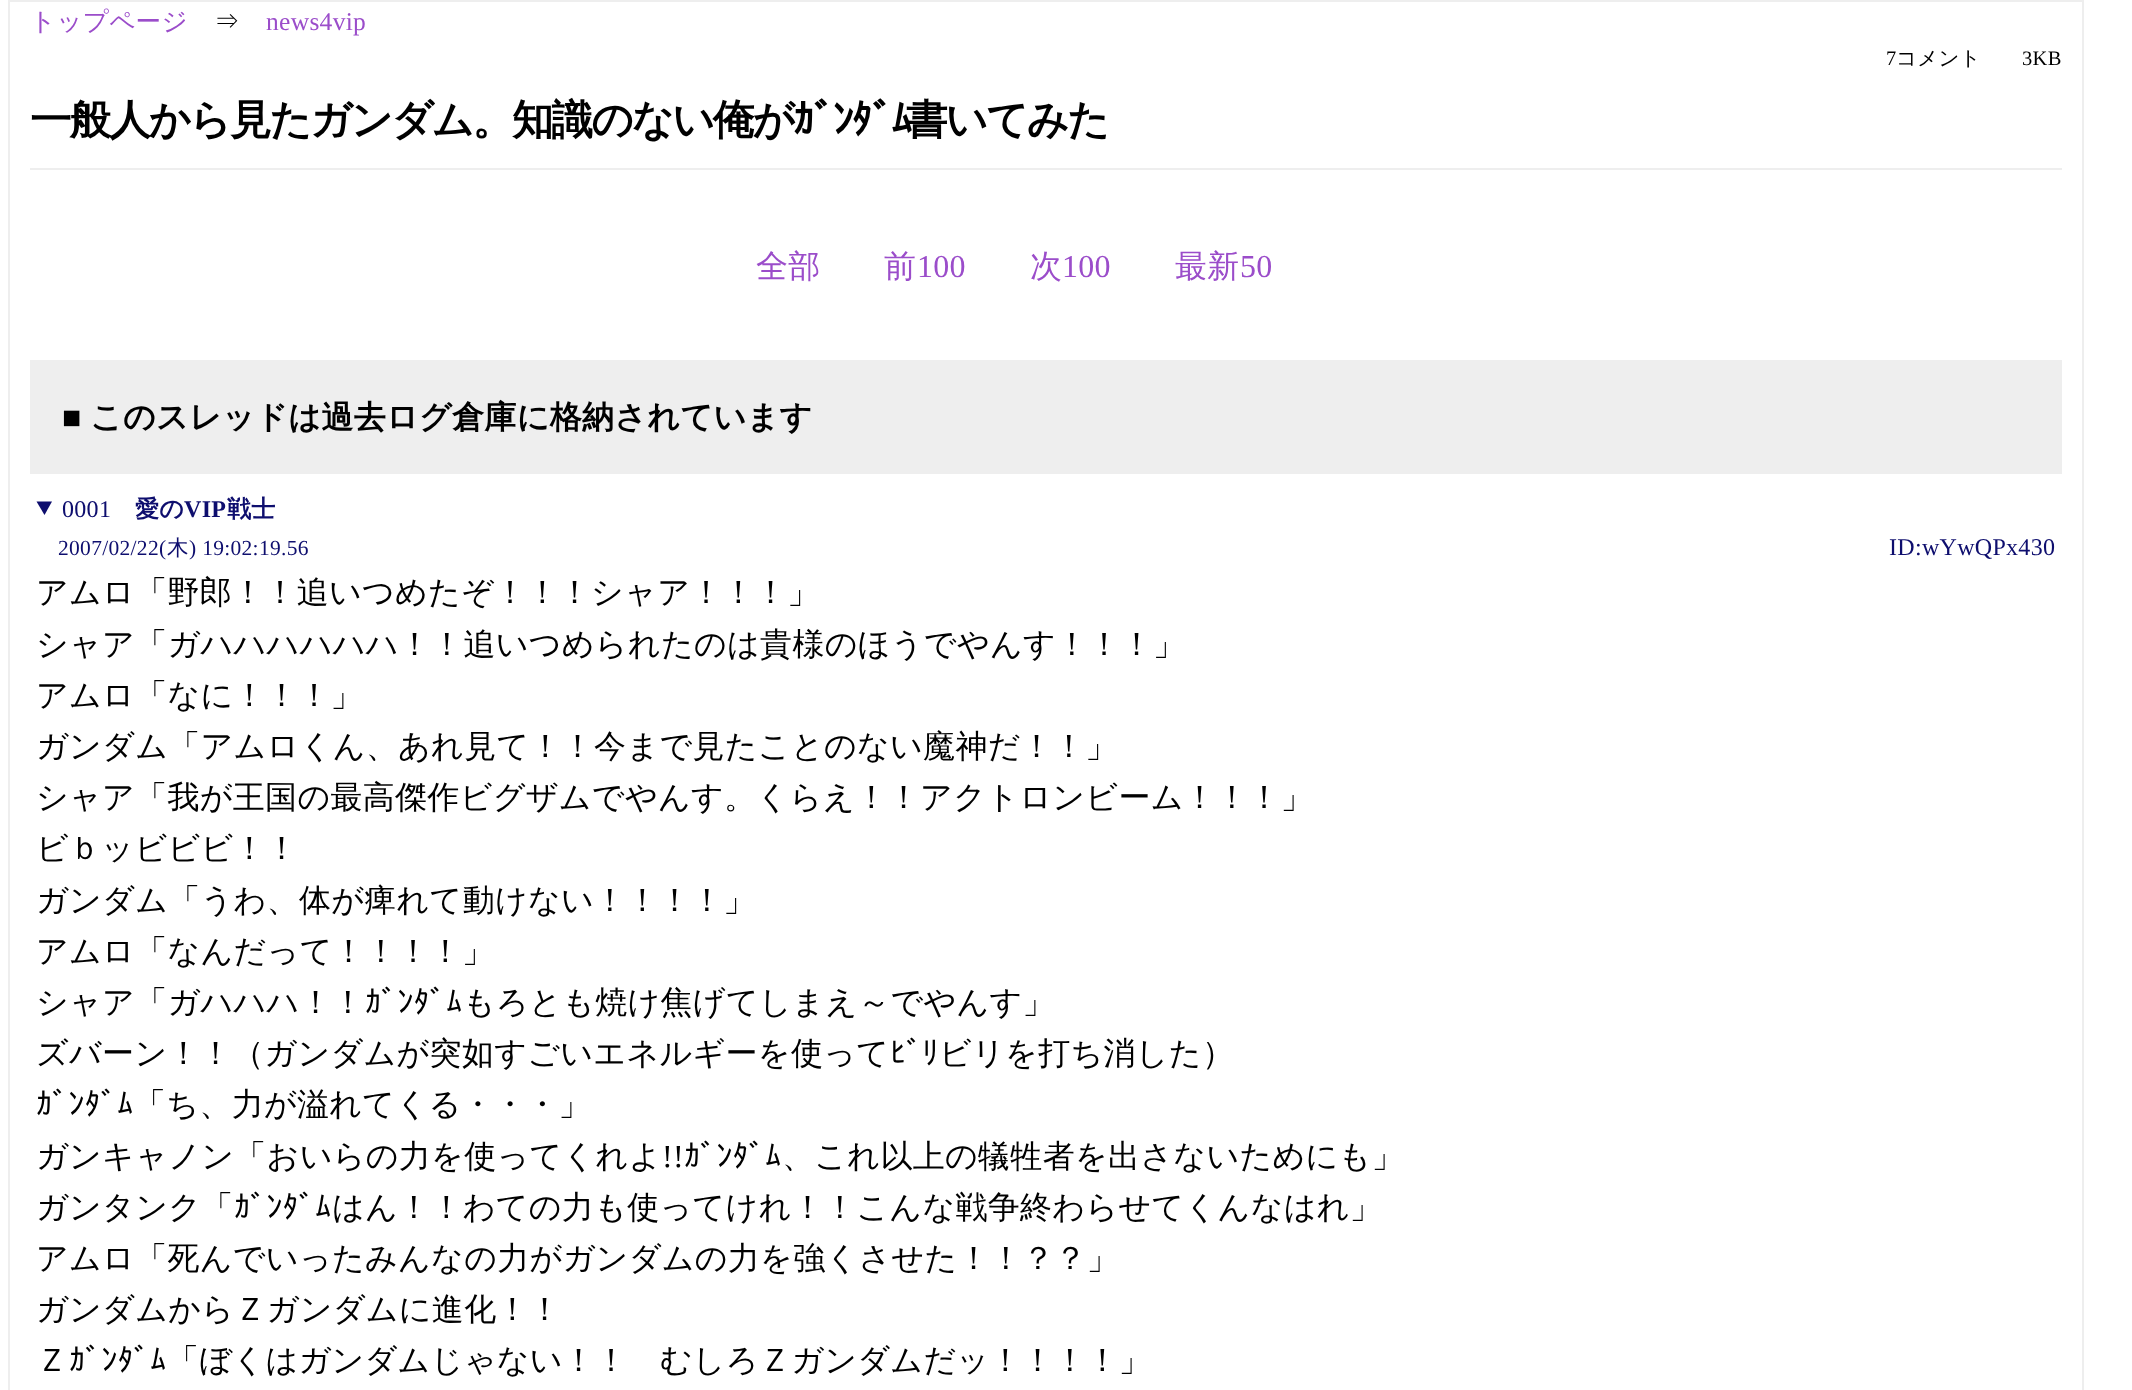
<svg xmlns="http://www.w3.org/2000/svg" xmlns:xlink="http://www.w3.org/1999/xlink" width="2132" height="1390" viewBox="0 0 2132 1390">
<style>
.cls-1{font:500 25.5px WenQuanYi Zen Hei;letter-spacing:0.3px;fill:#9b4dca}
.cls-2{font:500 25.5px WenQuanYi Zen Hei;letter-spacing:0.3px;fill:#000000}
.cls-3{font:25.5px Liberation Serif;letter-spacing:0.3px;fill:#9b4dca}
.cls-4{font:20.5px Liberation Serif;letter-spacing:0.3px;fill:#000000}
.cls-5{font:500 20.5px WenQuanYi Zen Hei;letter-spacing:0.3px;fill:#000000}
.cls-6{font:bold 41.6px WenQuanYi Zen Hei;letter-spacing:-2px;fill:#000000}
.cls-7{font:bold 41.6px IPAPGothic;letter-spacing:-2px;fill:#000000}
.cls-8{font:500 32px WenQuanYi Zen Hei;letter-spacing:0.3px;fill:#9b4dca}
.cls-9{font:32px Liberation Serif;letter-spacing:0.3px;fill:#9b4dca}
.cls-10{font:bold 32px Liberation Serif;letter-spacing:0.3px;fill:#000000}
.cls-11{font:bold 32px WenQuanYi Zen Hei;letter-spacing:0.3px;fill:#000000}
.cls-12{font:24px Liberation Serif;letter-spacing:0.3px;fill:#0e0e6e}
.cls-13{font:bold 24px WenQuanYi Zen Hei;letter-spacing:0.3px;fill:#0e0e6e}
.cls-14{font:bold 24px Liberation Serif;letter-spacing:0.3px;fill:#0e0e6e}
.cls-15{font:21.5px Liberation Serif;letter-spacing:0.3px;fill:#0e0e6e}
.cls-16{font:500 21.5px WenQuanYi Zen Hei;letter-spacing:0.3px;fill:#0e0e6e}
.cls-17{font:500 32px WenQuanYi Zen Hei;letter-spacing:0.3px;fill:#000000}
.cls-18{font:32px IPAPGothic;letter-spacing:0.3px;fill:#000000}
.cls-19{font:32px Liberation Serif;letter-spacing:0.3px;fill:#000000}
</style>
<rect width="100%" height="100%" fill="#ffffff"/>
<rect fill="none" stroke="#eeeeee" stroke-width="2" x="9" y="1" width="2074" height="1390"/>
<rect fill="#eeeeee" x="30" y="168" width="2032" height="2"/>
<rect fill="#eeeeee" x="30" y="360" width="2032" height="114"/>
<path fill="#0e0e6e" d="M36.5 501.5H52L44.5 515Z"/>
<text class="cls-1" x="30" y="30">トップページ</text>
<text class="cls-2" x="214" y="30">⇒</text>
<text class="cls-3" x="266" y="30">news4vip</text>
<text class="cls-4" x="1886" y="65">7</text>
<text class="cls-5" x="1896" y="65">コメント</text>
<text class="cls-4" x="2022" y="65">3KB</text>
<text class="cls-6" x="30" y="134">一般人から見たガンダム。知識のない俺が</text>
<text class="cls-7" x="793" y="134">ｶﾞﾝﾀﾞﾑ</text>
<text class="cls-6" x="906" y="134">書いてみた</text>
<text class="cls-8" x="756" y="277">全部</text>
<text class="cls-8" x="884" y="277">前</text>
<text class="cls-9" x="917" y="277">100</text>
<text class="cls-8" x="1030" y="277">次</text>
<text class="cls-9" x="1062" y="277">100</text>
<text class="cls-8" x="1175" y="277">最新</text>
<text class="cls-9" x="1240" y="277">50</text>
<text class="cls-10" x="62" y="428">■</text>
<text class="cls-11" x="90" y="428">このスレッドは過去ログ倉庫に格納されています</text>
<text class="cls-12" x="62" y="517">0001</text>
<text class="cls-13" x="135" y="517">愛の</text>
<text class="cls-14" x="184" y="517">VIP</text>
<text class="cls-13" x="227" y="517">戦士</text>
<text class="cls-15" x="58" y="555">2007/02/22(</text>
<text class="cls-16" x="167" y="555">木</text>
<text class="cls-15" x="189" y="555">) 19:02:19.56</text>
<text class="cls-12" x="1889" y="555">ID:wYwQPx430</text>
<text class="cls-17"><tspan x="36" y="603">アムロ「野郎！！追いつめたぞ！！！シャア！！！」</tspan><tspan x="36" y="655">シャア「ガハハハハハハ！！追いつめられたのは貴様のほうでやんす！！！」</tspan><tspan x="36" y="706">アムロ「なに！！！」</tspan><tspan x="36" y="757">ガンダム「アムロくん、あれ見て！！今まで見たことのない魔神だ！！」</tspan><tspan x="36" y="808">シャア「我が王国の最高傑作ビグザムでやんす。くらえ！！アクトロンビーム！！！」</tspan><tspan x="36" y="859">ビｂッビビビ！！</tspan><tspan x="36" y="911">ガンダム「うわ、体が痺れて動けない！！！！」</tspan><tspan x="36" y="962">アムロ「なんだって！！！！」</tspan><tspan x="36" y="1013">シャア「ガハハハ！！</tspan></text>
<text class="cls-18" x="365" y="1013">ｶﾞﾝﾀﾞﾑ</text>
<text class="cls-17" x="463" y="1013">もろとも焼け焦げてしまえ～でやんす」</text>
<text class="cls-17" x="36" y="1064">ズバーン！！（ガンダムが突如すごいエネルギーを使って</text>
<text class="cls-18" x="890" y="1064">ﾋﾞﾘ</text>
<text class="cls-17" x="939" y="1064">ビリを打ち消した）</text>
<text class="cls-18" x="36" y="1115">ｶﾞﾝﾀﾞﾑ</text>
<text class="cls-17" x="134" y="1115">「ち、力が溢れてくる・・・」</text>
<text class="cls-17" x="36" y="1167">ガンキャノン「おいらの力を使ってくれよ</text>
<text class="cls-19" x="662" y="1167">!!</text>
<text class="cls-18" x="684" y="1167">ｶﾞﾝﾀﾞﾑ</text>
<text class="cls-17" x="782" y="1167">、これ以上の犠牲者を出さないためにも」</text>
<text class="cls-17" x="36" y="1218">ガンタンク「</text>
<text class="cls-18" x="234" y="1218">ｶﾞﾝﾀﾞﾑ</text>
<text class="cls-17" x="332" y="1218">はん！！わての力も使ってけれ！！こんな戦争終わらせてくんなはれ」</text>
<text class="cls-17"><tspan x="36" y="1269">アムロ「死んでいったみんなの力がガンダムの力を強くさせた！！？？」</tspan><tspan x="36" y="1320">ガンダムからＺガンダムに進化！！</tspan><tspan x="36" y="1371">Ｚ</tspan></text>
<text class="cls-18" x="69" y="1371">ｶﾞﾝﾀﾞﾑ</text>
<text class="cls-17" x="167" y="1371">「ぼくはガンダムじゃない！！　むしろＺガンダムだッ！！！！」</text>
</svg>
